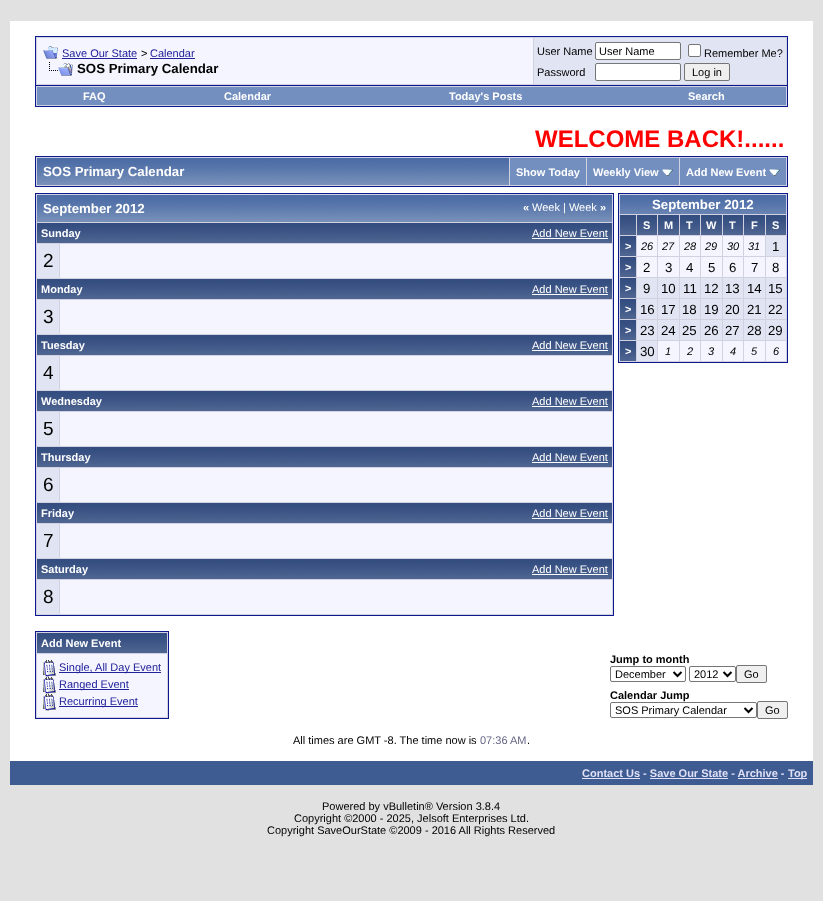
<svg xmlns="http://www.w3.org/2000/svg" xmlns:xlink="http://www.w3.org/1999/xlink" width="823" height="901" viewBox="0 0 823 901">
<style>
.cls-1{font:11px Liberation Sans;fill:#22229c}
.cls-2{font:11px Liberation Sans;fill:#000000}
.cls-3{font:bold 13.25px Liberation Sans;fill:#000000}
.cls-4{font:bold 11px Liberation Sans;fill:#ffffff}
.cls-5{font:bold 24px Liberation Sans;fill:#ff0000}
.cls-6{font:bold 13.25px Liberation Sans;fill:#ffffff}
.cls-7{font:11px Liberation Sans;fill:#ffffff}
.cls-8{font:19px Liberation Sans;fill:#000000}
.cls-9{font:italic 11px Liberation Sans;fill:#000000}
.cls-10{font:13.25px Liberation Sans;fill:#000000}
.cls-11{font:bold 11px Liberation Sans;fill:#000000}
.cls-12{font:11px Liberation Sans;fill:#666686}
.cls-13{font:bold 11px Liberation Sans;fill:#e0e0f6}
</style>
<rect width="100%" height="100%" fill="#e1e1e2"/>
<rect fill="#ffffff" x="10" y="21" width="803" height="740"/>
<rect fill="#d1d1e1" stroke="#0b198c" x="35.5" y="36.5" width="752" height="49"/>
<rect fill="#f5f5ff" x="37" y="38" width="496" height="46"/>
<image xlink:href="image0.png" x="43" y="46" width="15" height="13"/>
<rect fill="#22229c" x="62" y="58" width="75" height="1"/>
<rect fill="#22229c" x="150" y="58" width="45" height="1"/>
<image xlink:href="image1.png" x="49" y="62" width="24" height="14"/>
<rect fill="#e1e4f2" x="534" y="38" width="252" height="46"/>
<rect fill="#ffffff" stroke="#767676" x="595.5" y="42.5" width="85" height="17" rx="1.5"/>
<rect fill="#ffffff" stroke="#767676" x="688.5" y="44.5" width="12" height="12" rx="1.5"/>
<rect fill="#ffffff" stroke="#767676" x="595.5" y="63.5" width="85" height="17" rx="1.5"/>
<rect fill="#efefef" stroke="#767676" x="684.5" y="63.5" width="45" height="17" rx="1.5"/>
<rect fill="#d1d1e1" x="36" y="86" width="751" height="20"/>
<rect fill="#0b198c" x="787" y="86" width="1" height="21"/>
<rect fill="#0b198c" x="35" y="106" width="753" height="1"/>
<rect fill="#0b198c" x="35" y="86" width="1" height="21"/>
<rect fill="#738fbf" x="37" y="87" width="749" height="18"/>
<rect fill="#d1d1e1" stroke="#0b198c" x="35.5" y="156.5" width="752" height="30"/>
<image xlink:href="image2.png" x="37" y="158" width="472" height="27"/>
<rect fill="#738fbf" x="510" y="158" width="76" height="27"/>
<rect fill="#738fbf" x="587" y="158" width="92" height="27"/>
<image xlink:href="image3.png" x="662" y="169" width="11" height="7"/>
<rect fill="#738fbf" x="680" y="158" width="106" height="27"/>
<image xlink:href="image3.png" x="769" y="169" width="11" height="7"/>
<rect fill="#d1d1e1" stroke="#0b198c" x="35.5" y="193.5" width="578" height="422"/>
<image xlink:href="image4.png" x="37" y="195" width="575" height="27"/>
<image xlink:href="image5.png" x="37" y="223" width="575" height="20"/>
<rect fill="#ffffff" x="532" y="238" width="76" height="1"/>
<rect fill="#e1e4f2" x="37" y="244" width="22" height="34"/>
<rect fill="#f5f5ff" x="60" y="244" width="552" height="34"/>
<image xlink:href="image5.png" x="37" y="279" width="575" height="20"/>
<rect fill="#ffffff" x="532" y="294" width="76" height="1"/>
<rect fill="#e1e4f2" x="37" y="300" width="22" height="34"/>
<rect fill="#f5f5ff" x="60" y="300" width="552" height="34"/>
<image xlink:href="image5.png" x="37" y="335" width="575" height="20"/>
<rect fill="#ffffff" x="532" y="350" width="76" height="1"/>
<rect fill="#e1e4f2" x="37" y="356" width="22" height="34"/>
<rect fill="#f5f5ff" x="60" y="356" width="552" height="34"/>
<image xlink:href="image5.png" x="37" y="391" width="575" height="20"/>
<rect fill="#ffffff" x="532" y="406" width="76" height="1"/>
<rect fill="#e1e4f2" x="37" y="412" width="22" height="34"/>
<rect fill="#f5f5ff" x="60" y="412" width="552" height="34"/>
<image xlink:href="image5.png" x="37" y="447" width="575" height="20"/>
<rect fill="#ffffff" x="532" y="462" width="76" height="1"/>
<rect fill="#e1e4f2" x="37" y="468" width="22" height="34"/>
<rect fill="#f5f5ff" x="60" y="468" width="552" height="34"/>
<image xlink:href="image5.png" x="37" y="503" width="575" height="20"/>
<rect fill="#ffffff" x="532" y="518" width="76" height="1"/>
<rect fill="#e1e4f2" x="37" y="524" width="22" height="34"/>
<rect fill="#f5f5ff" x="60" y="524" width="552" height="34"/>
<image xlink:href="image5.png" x="37" y="559" width="575" height="20"/>
<rect fill="#ffffff" x="532" y="574" width="76" height="1"/>
<rect fill="#e1e4f2" x="37" y="580" width="22" height="34"/>
<rect fill="#f5f5ff" x="60" y="580" width="552" height="34"/>
<rect fill="#d1d1e1" stroke="#0b198c" x="618.5" y="193.5" width="169" height="169"/>
<image xlink:href="image6.png" x="620" y="195" width="166" height="19"/>
<image xlink:href="image7.png" x="620" y="215" width="16" height="20"/>
<image xlink:href="image8.png" x="637" y="215" width="20" height="20"/>
<image xlink:href="image9.png" x="658" y="215" width="21" height="20"/>
<image xlink:href="image8.png" x="680" y="215" width="20" height="20"/>
<image xlink:href="image9.png" x="701" y="215" width="21" height="20"/>
<image xlink:href="image8.png" x="723" y="215" width="20" height="20"/>
<image xlink:href="image9.png" x="744" y="215" width="21" height="20"/>
<image xlink:href="image8.png" x="766" y="215" width="20" height="20"/>
<image xlink:href="image7.png" x="620" y="236" width="16" height="20"/>
<rect fill="#f5f5ff" x="637" y="236" width="20" height="20"/>
<rect fill="#f5f5ff" x="658" y="236" width="21" height="20"/>
<rect fill="#f5f5ff" x="680" y="236" width="20" height="20"/>
<rect fill="#f5f5ff" x="701" y="236" width="21" height="20"/>
<rect fill="#f5f5ff" x="723" y="236" width="20" height="20"/>
<rect fill="#f5f5ff" x="744" y="236" width="21" height="20"/>
<rect fill="#e1e4f2" x="766" y="236" width="20" height="20"/>
<image xlink:href="image7.png" x="620" y="257" width="16" height="20"/>
<rect fill="#f5f5ff" x="637" y="257" width="20" height="20"/>
<rect fill="#f5f5ff" x="658" y="257" width="21" height="20"/>
<rect fill="#f5f5ff" x="680" y="257" width="20" height="20"/>
<rect fill="#f5f5ff" x="701" y="257" width="21" height="20"/>
<rect fill="#f5f5ff" x="723" y="257" width="20" height="20"/>
<rect fill="#f5f5ff" x="744" y="257" width="21" height="20"/>
<rect fill="#f5f5ff" x="766" y="257" width="20" height="20"/>
<image xlink:href="image7.png" x="620" y="278" width="16" height="20"/>
<rect fill="#e1e4f2" x="637" y="278" width="20" height="20"/>
<rect fill="#e1e4f2" x="658" y="278" width="21" height="20"/>
<rect fill="#e1e4f2" x="680" y="278" width="20" height="20"/>
<rect fill="#e1e4f2" x="701" y="278" width="21" height="20"/>
<rect fill="#e1e4f2" x="723" y="278" width="20" height="20"/>
<rect fill="#e1e4f2" x="744" y="278" width="21" height="20"/>
<rect fill="#e1e4f2" x="766" y="278" width="20" height="20"/>
<image xlink:href="image7.png" x="620" y="299" width="16" height="20"/>
<rect fill="#e1e4f2" x="637" y="299" width="20" height="20"/>
<rect fill="#e1e4f2" x="658" y="299" width="21" height="20"/>
<rect fill="#e1e4f2" x="680" y="299" width="20" height="20"/>
<rect fill="#e1e4f2" x="701" y="299" width="21" height="20"/>
<rect fill="#e1e4f2" x="723" y="299" width="20" height="20"/>
<rect fill="#e1e4f2" x="744" y="299" width="21" height="20"/>
<rect fill="#e1e4f2" x="766" y="299" width="20" height="20"/>
<image xlink:href="image7.png" x="620" y="320" width="16" height="20"/>
<rect fill="#e1e4f2" x="637" y="320" width="20" height="20"/>
<rect fill="#e1e4f2" x="658" y="320" width="21" height="20"/>
<rect fill="#e1e4f2" x="680" y="320" width="20" height="20"/>
<rect fill="#e1e4f2" x="701" y="320" width="21" height="20"/>
<rect fill="#e1e4f2" x="723" y="320" width="20" height="20"/>
<rect fill="#e1e4f2" x="744" y="320" width="21" height="20"/>
<rect fill="#e1e4f2" x="766" y="320" width="20" height="20"/>
<image xlink:href="image7.png" x="620" y="341" width="16" height="20"/>
<rect fill="#e1e4f2" x="637" y="341" width="20" height="20"/>
<rect fill="#f5f5ff" x="658" y="341" width="21" height="20"/>
<rect fill="#f5f5ff" x="680" y="341" width="20" height="20"/>
<rect fill="#f5f5ff" x="701" y="341" width="21" height="20"/>
<rect fill="#f5f5ff" x="723" y="341" width="20" height="20"/>
<rect fill="#f5f5ff" x="744" y="341" width="21" height="20"/>
<rect fill="#f5f5ff" x="766" y="341" width="20" height="20"/>
<rect fill="#d1d1e1" stroke="#0b198c" x="35.5" y="631.5" width="133" height="87"/>
<image xlink:href="image10.png" x="37" y="633" width="130" height="20"/>
<rect fill="#f5f5ff" x="37" y="654" width="130" height="63"/>
<image xlink:href="image11.png" x="43" y="660" width="13" height="17"/>
<rect fill="#22229c" x="59" y="672" width="102" height="1"/>
<image xlink:href="image11.png" x="43" y="677" width="13" height="17"/>
<rect fill="#22229c" x="59" y="689" width="70" height="1"/>
<image xlink:href="image11.png" x="43" y="694" width="13" height="17"/>
<rect fill="#22229c" x="59" y="706" width="79" height="1"/>
<rect fill="none" stroke="#767676" x="610.5" y="666.5" width="75" height="15" rx="1.5"/>
<path fill="none" stroke="#000000" stroke-width="2" d="M673.5 672L677.5 676L681.5 672"/>
<rect fill="none" stroke="#767676" x="689.5" y="666.5" width="46" height="15" rx="1.5"/>
<path fill="none" stroke="#000000" stroke-width="2" d="M723.5 672L727.5 676L731.5 672"/>
<rect fill="#efefef" stroke="#767676" x="736.5" y="665.5" width="30" height="17" rx="1.5"/>
<rect fill="none" stroke="#767676" x="610.5" y="702.5" width="146" height="15" rx="1.5"/>
<path fill="none" stroke="#000000" stroke-width="2" d="M744.5 708L748.5 712L752.5 708"/>
<rect fill="#efefef" stroke="#767676" x="757.5" y="701.5" width="30" height="17" rx="1.5"/>
<rect fill="#3e5c92" x="10" y="761" width="803" height="24"/>
<rect fill="#e0e0f6" x="582" y="778" width="58" height="1"/>
<rect fill="#e0e0f6" x="650" y="778" width="78" height="1"/>
<rect fill="#e0e0f6" x="738" y="778" width="40" height="1"/>
<rect fill="#e0e0f6" x="788" y="778" width="19" height="1"/>
<text class="cls-1" x="62" y="57">Save Our State</text>
<text class="cls-2" x="141" y="57">&gt;</text>
<text class="cls-1" x="150" y="57">Calendar</text>
<text class="cls-3" x="77" y="73">SOS Primary Calendar</text>
<text class="cls-2" x="537" y="55">User Name</text>
<text class="cls-2" x="599" y="55">User Name</text>
<text class="cls-2" x="704" y="57">Remember Me?</text>
<text class="cls-2" x="537" y="76">Password</text>
<text class="cls-2" x="692" y="76">Log in</text>
<text class="cls-4" x="83" y="100">FAQ</text>
<text class="cls-4" x="224" y="100">Calendar</text>
<text class="cls-4" x="449" y="100">Today's Posts</text>
<text class="cls-4" x="688" y="100">Search</text>
<text class="cls-5" x="535" y="147">WELCOME BACK!......</text>
<text class="cls-6" x="43" y="176">SOS Primary Calendar</text>
<text class="cls-4" x="516" y="176">Show Today</text>
<text class="cls-4" x="593" y="176">Weekly View</text>
<text class="cls-4" x="686" y="176">Add New Event</text>
<text class="cls-6" x="43" y="213">September 2012</text>
<text class="cls-4" x="523" y="211">«</text>
<text class="cls-7" x="532" y="211">Week | Week</text>
<text class="cls-4" x="600" y="211">»</text>
<text class="cls-4" x="41" y="237">Sunday</text>
<text class="cls-7" x="532" y="237">Add New Event</text>
<text class="cls-8" x="43" y="267">2</text>
<text class="cls-4" x="41" y="293">Monday</text>
<text class="cls-7" x="532" y="293">Add New Event</text>
<text class="cls-8" x="43" y="323">3</text>
<text class="cls-4" x="41" y="349">Tuesday</text>
<text class="cls-7" x="532" y="349">Add New Event</text>
<text class="cls-8" x="43" y="379">4</text>
<text class="cls-4" x="41" y="405">Wednesday</text>
<text class="cls-7" x="532" y="405">Add New Event</text>
<text class="cls-8" x="43" y="435">5</text>
<text class="cls-4" x="41" y="461">Thursday</text>
<text class="cls-7" x="532" y="461">Add New Event</text>
<text class="cls-8" x="43" y="491">6</text>
<text class="cls-4" x="41" y="517">Friday</text>
<text class="cls-7" x="532" y="517">Add New Event</text>
<text class="cls-8" x="43" y="547">7</text>
<text class="cls-4" x="41" y="573">Saturday</text>
<text class="cls-7" x="532" y="573">Add New Event</text>
<text class="cls-8" x="43" y="603">8</text>
<text class="cls-6" x="652" y="209">September 2012</text>
<text class="cls-4" x="643" y="229">S</text>
<text class="cls-4" x="664" y="229">M</text>
<text class="cls-4" x="686" y="229">T</text>
<text class="cls-4" x="706" y="229">W</text>
<text class="cls-4" x="729" y="229">T</text>
<text class="cls-4" x="751" y="229">F</text>
<text class="cls-4" x="772" y="229">S</text>
<text class="cls-4" x="625" y="250">&gt;</text>
<text class="cls-9" x="641" y="250">26</text>
<text class="cls-9" x="662" y="250">27</text>
<text class="cls-9" x="684" y="250">28</text>
<text class="cls-9" x="705" y="250">29</text>
<text class="cls-9" x="727" y="250">30</text>
<text class="cls-9" x="748" y="250">31</text>
<text class="cls-10" x="772" y="251">1</text>
<text class="cls-4" x="625" y="271">&gt;</text>
<text class="cls-10" x="643" y="272">2</text>
<text class="cls-10" x="665" y="272">3</text>
<text class="cls-10" x="686" y="272">4</text>
<text class="cls-10" x="708" y="272">5</text>
<text class="cls-10" x="729" y="272">6</text>
<text class="cls-10" x="751" y="272">7</text>
<text class="cls-10" x="772" y="272">8</text>
<text class="cls-4" x="625" y="292">&gt;</text>
<text class="cls-10" x="643" y="293">9</text>
<text class="cls-10" x="661" y="293">10</text>
<text class="cls-10" x="683" y="293">11</text>
<text class="cls-10" x="704" y="293">12</text>
<text class="cls-10" x="725" y="293">13</text>
<text class="cls-10" x="747" y="293">14</text>
<text class="cls-10" x="768" y="293">15</text>
<text class="cls-4" x="625" y="313">&gt;</text>
<text class="cls-10" x="640" y="314">16</text>
<text class="cls-10" x="661" y="314">17</text>
<text class="cls-10" x="682" y="314">18</text>
<text class="cls-10" x="704" y="314">19</text>
<text class="cls-10" x="725" y="314">20</text>
<text class="cls-10" x="747" y="314">21</text>
<text class="cls-10" x="768" y="314">22</text>
<text class="cls-4" x="625" y="334">&gt;</text>
<text class="cls-10" x="640" y="335">23</text>
<text class="cls-10" x="661" y="335">24</text>
<text class="cls-10" x="682" y="335">25</text>
<text class="cls-10" x="704" y="335">26</text>
<text class="cls-10" x="725" y="335">27</text>
<text class="cls-10" x="747" y="335">28</text>
<text class="cls-10" x="768" y="335">29</text>
<text class="cls-4" x="625" y="355">&gt;</text>
<text class="cls-10" x="640" y="356">30</text>
<text class="cls-9" x="665" y="355">1</text>
<text class="cls-9" x="687" y="355">2</text>
<text class="cls-9" x="708" y="355">3</text>
<text class="cls-9" x="730" y="355">4</text>
<text class="cls-9" x="751" y="355">5</text>
<text class="cls-9" x="773" y="355">6</text>
<text class="cls-4" x="41" y="647">Add New Event</text>
<text class="cls-1"><tspan x="59" y="671">Single, All Day Event</tspan><tspan x="59" y="688">Ranged Event</tspan><tspan x="59" y="705">Recurring Event</tspan></text>
<text class="cls-11" x="610" y="663">Jump to month</text>
<text class="cls-2" x="615" y="678">December</text>
<text class="cls-2" x="694" y="678">2012</text>
<text class="cls-2" x="744" y="678">Go</text>
<text class="cls-11" x="610" y="699">Calendar Jump</text>
<text class="cls-2" x="615" y="714">SOS Primary Calendar</text>
<text class="cls-2" x="765" y="714">Go</text>
<text class="cls-2" x="293" y="744">All times are GMT -8. The time now is</text>
<text class="cls-12" x="480" y="744">07:36 AM</text>
<text class="cls-2" x="527" y="744">.</text>
<text class="cls-13" x="582" y="777">Contact Us - Save Our State - Archive -</text>
<text class="cls-13" x="788" y="777">Top</text>
<text class="cls-2" x="322" y="810">Powered by vBulletin® Version 3.8.4</text>
<text class="cls-2" x="294" y="822">Copyright ©2000 - 2025, Jelsoft Enterprises Ltd.</text>
<text class="cls-2" x="267" y="834">Copyright SaveOurState ©2009 - 2016 All Rights Reserved</text>
</svg>
